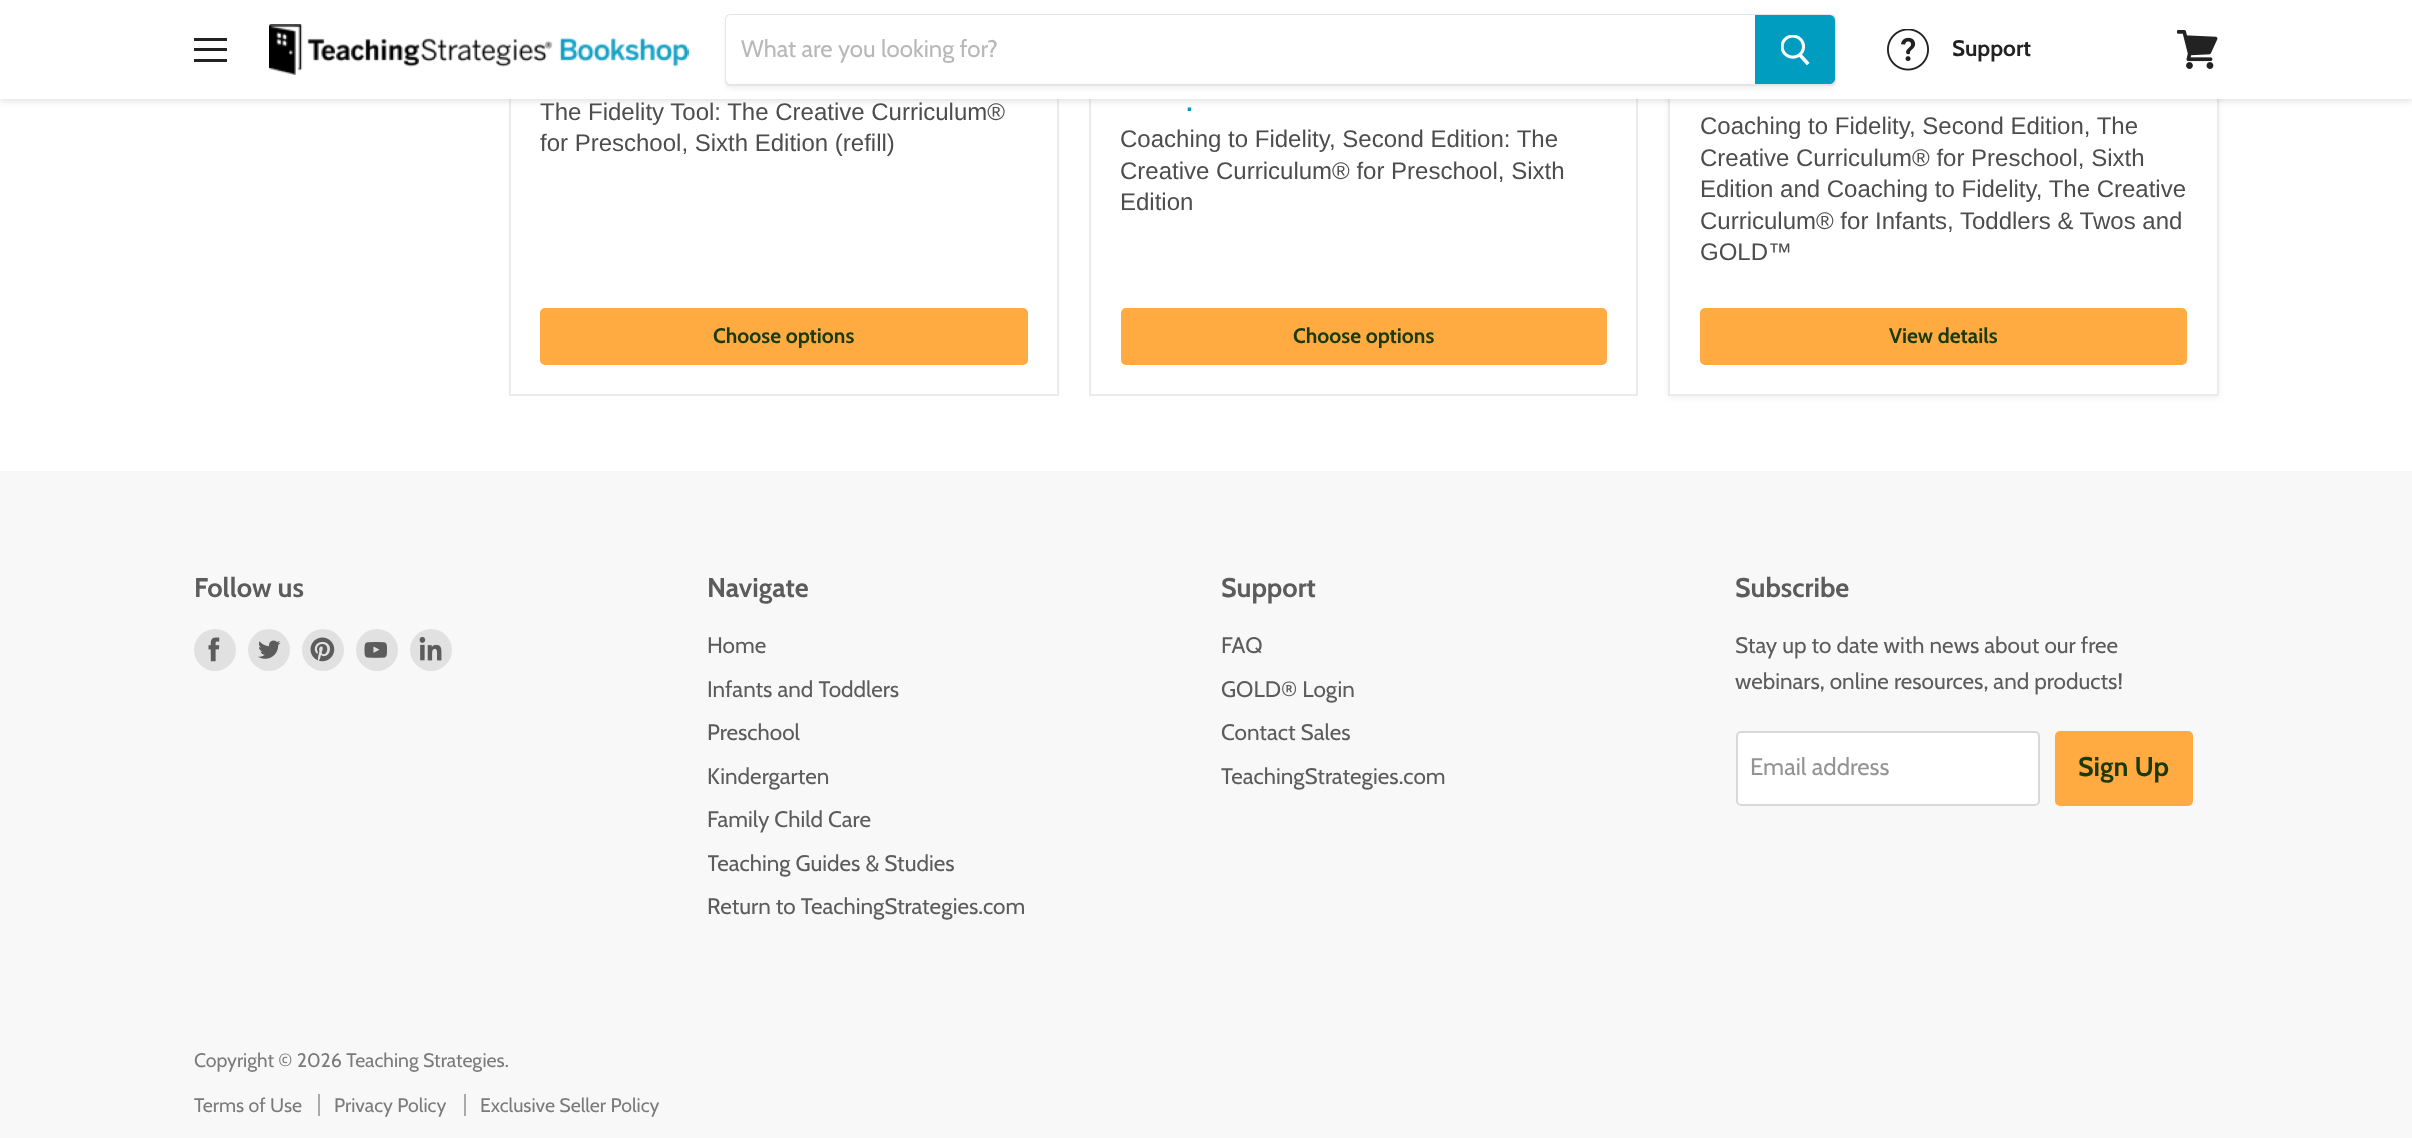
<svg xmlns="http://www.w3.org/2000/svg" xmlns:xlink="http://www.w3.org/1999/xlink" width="2412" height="1138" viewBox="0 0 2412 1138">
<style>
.cls-1{font:24px Cabin;fill:#b8b8b8}
.cls-2{font:bold 22.5px Cabin;fill:#222222}
.cls-3{font:24px Liberation Sans;fill:#4d4d4d}
.cls-4{font:bold 21px Cabin;fill:#1a390c}
.cls-5{font:33px Cabin;fill:#009cc0}
.cls-6{font:bold 27px Cabin;fill:#5c5c5c}
.cls-7{font:22.5px Cabin;fill:#5c5c5c}
.cls-8{font:24px Cabin;fill:#949494}
.cls-9{font:bold 27px Cabin;fill:#1a390c}
.cls-10{font:19.5px Cabin;fill:#7b7b7b}
</style>
<defs>
<clipPath id="clip1"><path d="M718 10H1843V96H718ZM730 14H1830C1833.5 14 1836 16.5 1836 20V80C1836 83.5 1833.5 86 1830 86H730C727 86 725 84 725 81V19C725 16 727 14 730 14Z" clip-rule="evenodd"/></clipPath>
<clipPath id="clip2"><rect x="708" y="629" width="453" height="297"/></clipPath>
</defs>
<rect width="100%" height="100%" fill="#ffffff"/>
<rect fill="none" stroke="#ebebeb" stroke-width="2" x="510" y="-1" width="548" height="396"/>
<rect fill="none" stroke="#ebebeb" stroke-width="2" x="1090" y="-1" width="547" height="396"/>
<rect fill="#7f7f7f" fill-opacity="0.11" filter="blur(3px)" x="1668" y="-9" width="551" height="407"/>
<rect fill="#ffffff" x="1670" y="99" width="547" height="295"/>
<rect fill="none" stroke="#ebebeb" stroke-width="2" x="1669" y="-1" width="549" height="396"/>
<rect fill="#7f7f7f" fill-opacity="0.25" filter="blur(3px)" x="0" y="2" width="2412" height="99"/>
<rect fill="#ffffff" x="0" y="0" width="2412" height="99"/>
<rect fill="#222222" x="194" y="38" width="33" height="3"/>
<rect fill="#222222" x="194" y="48" width="33" height="3"/>
<rect fill="#222222" x="194" y="59" width="33" height="3"/>
<image xlink:href="image0.png" x="269" y="24" width="420" height="51"/>
<g clip-path="url(#clip1)">
<rect fill="#7f7f7f" fill-opacity="0.11" filter="blur(2px)" x="725" y="17" width="1111" height="72" rx="6"/>
</g>
<path fill="none" stroke="#7f7f7f" stroke-opacity="0.2" stroke-width="2" d="M730 15H1830C1833 15 1835 17 1835 20V80C1835 83 1833 85 1830 85H730C728 85 726 83 726 81V19C726 17 728 15 730 15Z"/>
<path fill="#ffffff" d="M731 15H1755V84H731C728 84 726 82 726 79V20C726 17 728 15 731 15Z"/>
<path fill="#009dc1" stroke="#009dc1" stroke-width="2" d="M1756 16H1830C1832 16 1834 18 1834 20V79C1834 81 1832 83 1830 83H1756Z"/>
<image xlink:href="image1.png" x="1781" y="35" width="29" height="31"/>
<image xlink:href="image2.png" x="1887" y="29" width="42" height="42"/>
<image xlink:href="image3.png" x="2177" y="30" width="41" height="39"/>
<rect fill="#ffab41" stroke="#ffab41" stroke-width="2" x="541" y="309" width="486" height="55" rx="4"/>
<rect fill="#ffab41" stroke="#ffab41" stroke-width="2" x="1122" y="309" width="484" height="55" rx="4"/>
<rect fill="#ffab41" stroke="#ffab41" stroke-width="2" x="1701" y="309" width="485" height="55" rx="4"/>
<rect fill="#f8f8f8" x="0" y="471" width="2412" height="667"/>
<circle fill="#e1e1e1" cx="215" cy="650" r="21"/>
<image xlink:href="image4.png" x="208" y="637" width="12" height="25"/>
<circle fill="#e1e1e1" cx="269" cy="650" r="21"/>
<image xlink:href="image5.png" x="258" y="640" width="23" height="19"/>
<circle fill="#e1e1e1" cx="323" cy="650" r="21"/>
<image xlink:href="image6.png" x="310" y="637" width="25" height="25"/>
<circle fill="#e1e1e1" cx="377" cy="650" r="21"/>
<image xlink:href="image7.png" x="364" y="642" width="23" height="16"/>
<circle fill="#e1e1e1" cx="431" cy="650" r="21"/>
<image xlink:href="image8.png" x="419" y="636" width="23" height="25"/>
<rect fill="#ffffff" x="1736" y="731" width="304" height="75" rx="5"/>
<rect fill="none" stroke="#7f7f7f" stroke-opacity="0.3" stroke-width="2" x="1737" y="732" width="302" height="73" rx="4"/>
<rect fill="#ffab41" stroke="#ffab41" stroke-width="2" x="2056" y="732" width="136" height="73" rx="4"/>
<rect fill="#aaaaaa" x="318" y="1094" width="2" height="22"/>
<rect fill="#aaaaaa" x="464" y="1094" width="2" height="22"/>
<text class="cls-1" x="741" y="57">What are you looking for?</text>
<text class="cls-2" x="1952" y="56">Support</text>
<text class="cls-3"><tspan x="540" y="120">The Fidelity Tool: The Creative Curriculum®</tspan><tspan x="540" y="151">for Preschool, Sixth Edition (refill)</tspan></text>
<text class="cls-4" x="713" y="343">Choose options</text>
<text class="cls-5" x="1186" y="111">.</text>
<text class="cls-3"><tspan x="1120" y="147">Coaching to Fidelity, Second Edition: The</tspan><tspan x="1120" y="179">Creative Curriculum® for Preschool, Sixth</tspan><tspan x="1120" y="210">Edition</tspan></text>
<text class="cls-4" x="1293" y="343">Choose options</text>
<text class="cls-3"><tspan x="1700" y="134">Coaching to Fidelity, Second Edition, The</tspan><tspan x="1700" y="166">Creative Curriculum® for Preschool, Sixth</tspan><tspan x="1700" y="197">Edition and Coaching to Fidelity, The Creative</tspan><tspan x="1700" y="229">Curriculum® for Infants, Toddlers &amp; Twos and</tspan><tspan x="1700" y="260">GOLD™</tspan></text>
<text class="cls-4" x="1889" y="343">View details</text>
<text class="cls-6" x="194" y="597">Follow us</text>
<text class="cls-6" x="707" y="597">Navigate</text>
<text class="cls-7"><tspan x="707" y="653">Home</tspan><tspan x="707" y="697">Infants and Toddlers</tspan><tspan x="707" y="740">Preschool</tspan><tspan x="707" y="784">Kindergarten</tspan><tspan x="707" y="827">Family Child Care</tspan></text>
<g clip-path="url(#clip2)">
<text class="cls-7" x="707" y="871">Teaching Guides &amp; Studies</text>
</g>
<text class="cls-7" x="707" y="914">Return to TeachingStrategies.com</text>
<text class="cls-6" x="1221" y="597">Support</text>
<text class="cls-7"><tspan x="1221" y="653">FAQ</tspan><tspan x="1221" y="697">GOLD® Login</tspan><tspan x="1221" y="740">Contact Sales</tspan><tspan x="1221" y="784">TeachingStrategies.com</tspan></text>
<text class="cls-6" x="1735" y="597">Subscribe</text>
<text class="cls-7"><tspan x="1735" y="653">Stay up to date with news about our free</tspan><tspan x="1735" y="689">webinars, online resources, and products!</tspan></text>
<text class="cls-8" x="1750" y="775">Email address</text>
<text class="cls-9" x="2078" y="776">Sign Up</text>
<text class="cls-10" x="194" y="1067">Copyright © 2026 Teaching Strategies.</text>
<text class="cls-10" x="194" y="1112">Terms of Use</text>
<text class="cls-10" x="334" y="1112">Privacy Policy</text>
<text class="cls-10" x="480" y="1112">Exclusive Seller Policy</text>
</svg>
